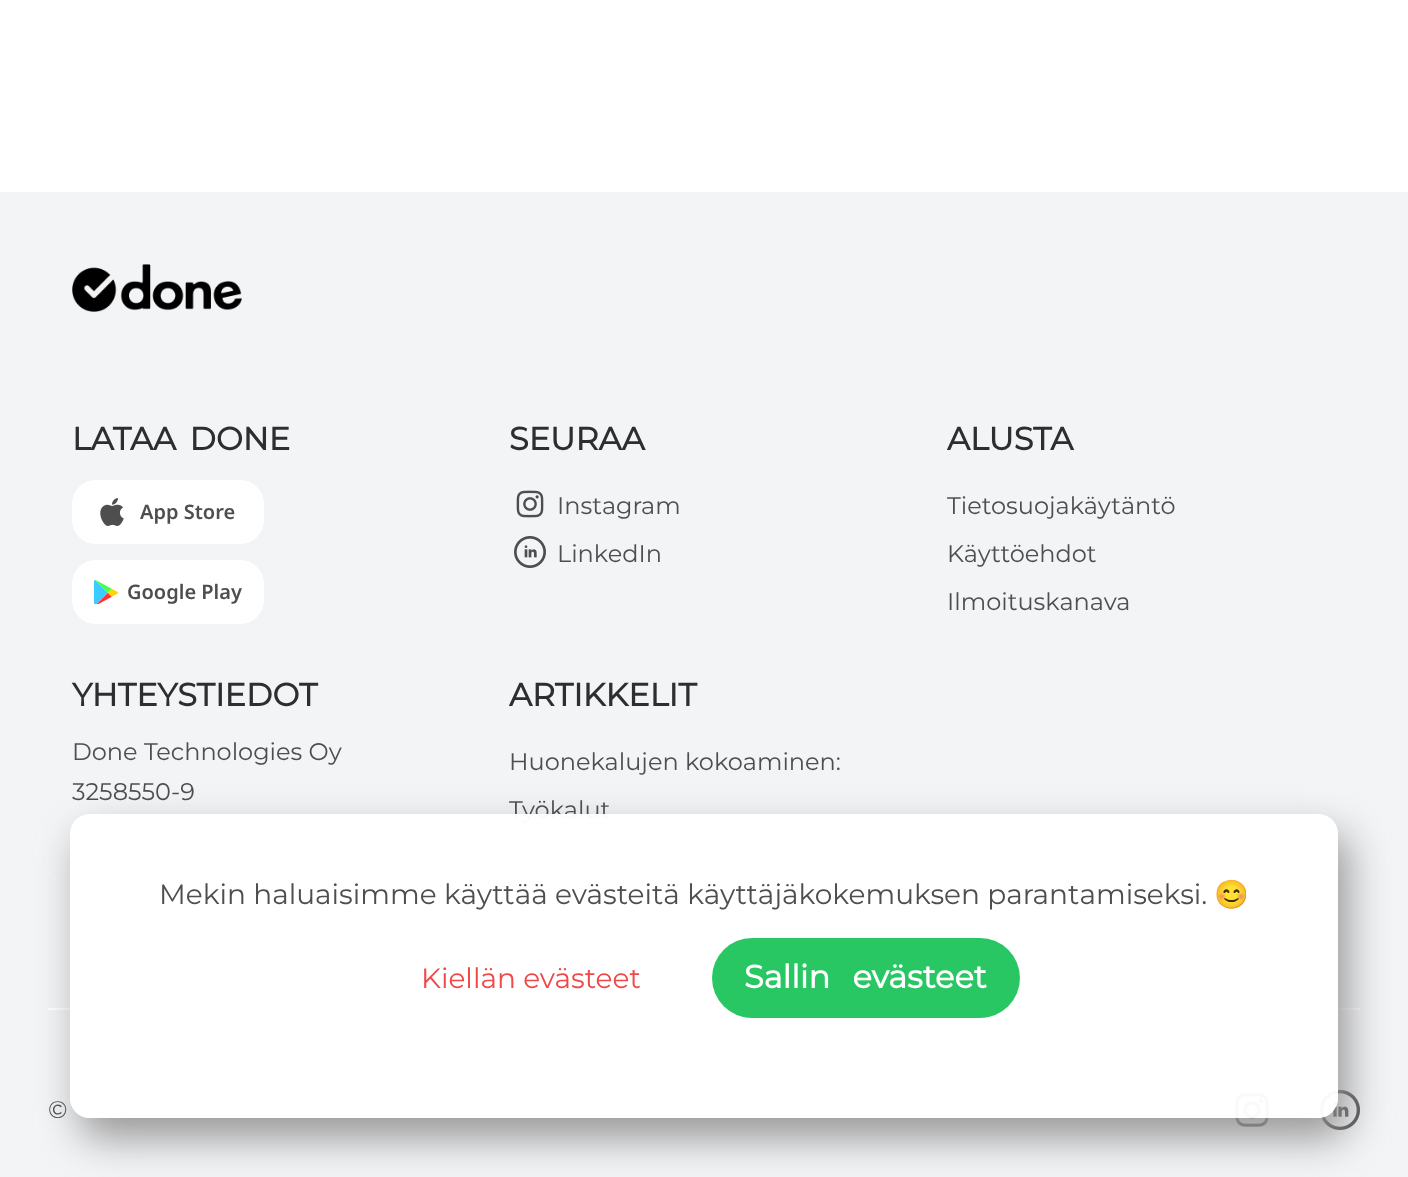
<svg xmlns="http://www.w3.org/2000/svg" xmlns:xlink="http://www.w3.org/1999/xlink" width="1408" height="1177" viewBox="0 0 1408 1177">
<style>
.cls-1{font:bold 32px Montserrat;fill:#2e2e2e}
.cls-2{font:600 20px Noto Sans;fill:#4e4e4e}
.cls-3{font:24px Montserrat;fill:#4e4e4e}
.cls-4{font:28px Montserrat;fill:#4e4e4e}
.cls-5{font:28px Noto Color Emoji;fill:#4e4e4e}
.cls-6{font:28px Montserrat;fill:#ef4949}
.cls-7{font:bold 32px Montserrat;fill:#ffffff}
</style>
<defs>
<clipPath id="clip1"><path d="M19 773H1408V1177H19ZM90 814H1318C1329 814 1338 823 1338 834V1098C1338 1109 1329 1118 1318 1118H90C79 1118 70 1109 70 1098V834C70 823 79 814 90 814Z" clip-rule="evenodd"/></clipPath>
</defs>
<rect width="100%" height="100%" fill="#ffffff"/>
<rect fill="#f3f4f6" x="0" y="192" width="1408" height="985"/>
<image xlink:href="image0.png" x="72" y="264" width="170" height="48"/>
<rect fill="#ffffff" x="72" y="480" width="192" height="64" rx="24"/>
<image xlink:href="image1.png" x="100" y="498" width="24" height="28"/>
<rect fill="#ffffff" x="72" y="560" width="192" height="64" rx="24"/>
<image xlink:href="image2.png" x="94" y="580" width="24" height="24"/>
<image xlink:href="image3.png" x="516" y="490" width="28" height="28"/>
<image xlink:href="image4.png" x="514" y="536" width="32" height="32"/>
<rect fill="#ffffff" x="48" y="1008" width="1312" height="2"/>
<image xlink:href="image5.png" x="1235" y="1093" width="34" height="34"/>
<image xlink:href="image6.png" x="1320" y="1090" width="40" height="40"/>
<g clip-path="url(#clip1)">
<rect fill="#949494" fill-opacity="0.97" filter="blur(20px)" x="80" y="834" width="1268" height="304" rx="20"/>
</g>
<text class="cls-1" x="72" y="450" word-spacing="5">LATAA DONE</text>
<text class="cls-2" x="140" y="519">App Store</text>
<text class="cls-2" x="127" y="599">Google Play</text>
<text class="cls-1" x="509" y="450">SEURAA</text>
<text class="cls-3" x="557" y="514">Instagram</text>
<text class="cls-3" x="557" y="562">LinkedIn</text>
<text class="cls-1" x="947" y="450">ALUSTA</text>
<text class="cls-3" x="947" y="514">Tietosuojakäytäntö</text>
<text class="cls-3" x="947" y="562">Käyttöehdot</text>
<text class="cls-3" x="947" y="610">Ilmoituskanava</text>
<text class="cls-1" x="72" y="706">YHTEYSTIEDOT</text>
<text class="cls-3"><tspan x="72" y="760">Done Technologies Oy</tspan><tspan x="72" y="800">3258550-9</tspan></text>
<text class="cls-1" x="509" y="706">ARTIKKELIT</text>
<text class="cls-3" x="509" y="770">Huonekalujen kokoaminen:</text>
<text class="cls-3" x="509" y="818">Työkalut</text>
<text class="cls-3" x="48" y="1118">©</text>
<rect fill="#ffffff" fill-opacity="0.97" x="70" y="814" width="1268" height="304" rx="20"/>
<text class="cls-4" x="159" y="904">Mekin haluaisimme käyttää evästeitä käyttäjäkokemuksen parantamiseksi.</text>
<text class="cls-5" x="1214" y="904">😊</text>
<text class="cls-6" x="421" y="988">Kiellän evästeet</text>
<rect fill="#29c763" x="712" y="938" width="308" height="80" rx="40"/>
<text class="cls-7" x="744" y="988" word-spacing="14">Sallin evästeet</text>
</svg>
